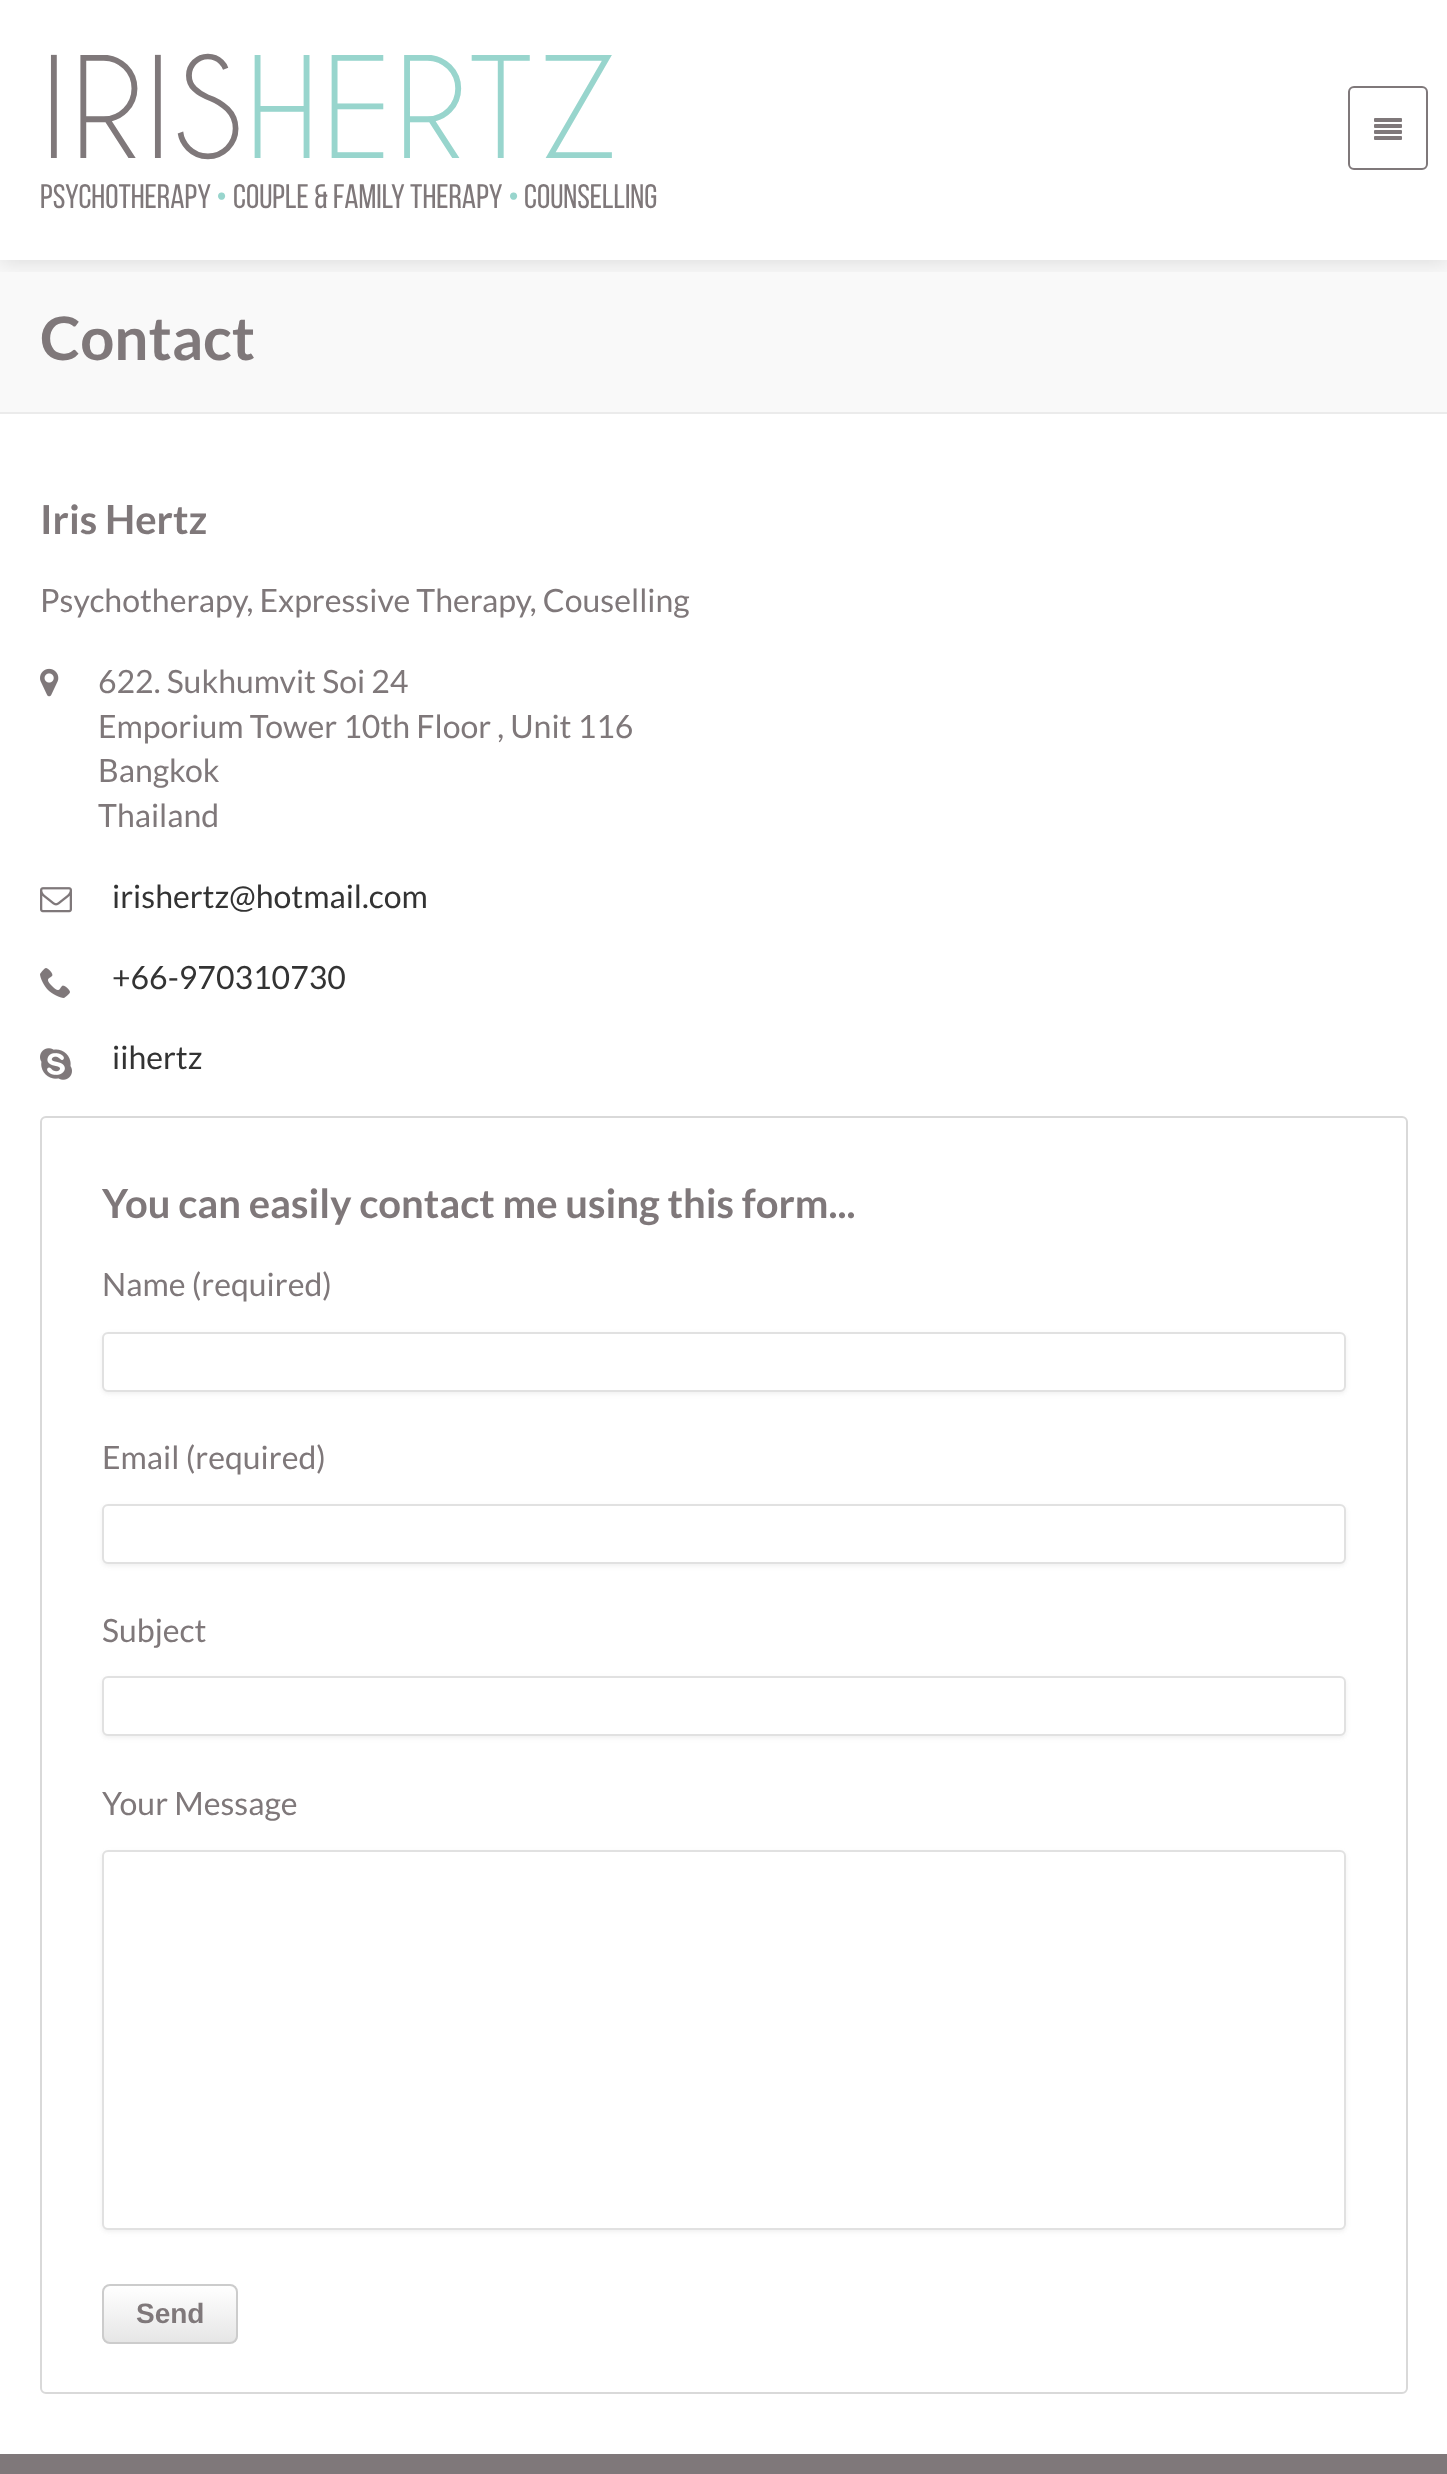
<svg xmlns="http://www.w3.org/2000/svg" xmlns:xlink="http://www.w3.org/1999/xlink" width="1447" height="2474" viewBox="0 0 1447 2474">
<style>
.cls-1{font:132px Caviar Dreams;letter-spacing:3px;fill:#7f787a}
.cls-2{font:132px Caviar Dreams;letter-spacing:3px;fill:#98d5cd}
.cls-3{font:34px Bebas Neue;fill:#7f787a}
.cls-4{font:34px Bebas Neue;fill:#98d5cd}
.cls-5{font:bold 60px Lato;fill:#7f787a}
.cls-6{font:bold 40px Lato;fill:#7f787a}
.cls-7{font:32px Lato;fill:#7f787a}
.cls-8{font:32px Lato;fill:#333333}
.cls-9{font:bold 28px Liberation Sans;fill:#7f787a}
</style>
<defs>
<clipPath id="clip1"><rect x="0" y="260" width="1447" height="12"/></clipPath>
<clipPath id="clip2"><rect x="102" y="2284" width="136" height="60" rx="8"/></clipPath>
<linearGradient id="g1" gradientUnits="userSpaceOnUse" x1="170" y1="2286" x2="170" y2="2342"><stop offset="0" stop-color="#ffffff"/><stop offset="1" stop-color="#e6e6e6"/></linearGradient>
</defs>
<rect width="100%" height="100%" fill="#ffffff"/>
<rect fill="#f9f9f9" x="0" y="260" width="1447" height="152"/>
<g clip-path="url(#clip1)">
<rect fill="#000000" fill-opacity="0.1" filter="blur(10px)" x="0" y="4" width="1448" height="260"/>
</g>
<rect fill="none" stroke="#7f787a" stroke-width="2" x="1349" y="87" width="78" height="82" rx="5"/>
<image xlink:href="image0.png" x="1374" y="118" width="28" height="22"/>
<rect fill="#ebebeb" x="0" y="412" width="1447" height="2"/>
<image xlink:href="image1.png" x="40" y="668" width="19" height="29"/>
<image xlink:href="image2.png" x="40" y="887" width="32" height="26"/>
<image xlink:href="image3.png" x="40" y="968" width="30" height="30"/>
<image xlink:href="image4.png" x="40" y="1048" width="32" height="32"/>
<rect fill="none" stroke="#d9d9d9" stroke-width="2" x="41" y="1117" width="1366" height="1276" rx="5"/>
<rect fill="#b4b4b4" fill-opacity="0.2" filter="blur(2px)" x="102" y="1334" width="1244" height="60" rx="6"/>
<rect fill="#ffffff" stroke="#e1e1e1" stroke-width="2" x="103" y="1333" width="1242" height="58" rx="5"/>
<rect fill="#b4b4b4" fill-opacity="0.2" filter="blur(2px)" x="102" y="1506" width="1244" height="60" rx="6"/>
<rect fill="#ffffff" stroke="#e1e1e1" stroke-width="2" x="103" y="1505" width="1242" height="58" rx="5"/>
<rect fill="#b4b4b4" fill-opacity="0.2" filter="blur(2px)" x="102" y="1678" width="1244" height="60" rx="6"/>
<rect fill="#ffffff" stroke="#e1e1e1" stroke-width="2" x="103" y="1677" width="1242" height="58" rx="5"/>
<rect fill="#b4b4b4" fill-opacity="0.2" filter="blur(2px)" x="102" y="1852" width="1244" height="380" rx="6"/>
<rect fill="#ffffff" stroke="#e1e1e1" stroke-width="2" x="103" y="1851" width="1242" height="378" rx="5"/>
<g clip-path="url(#clip2)">
<rect fill="url(#g1)" x="102" y="2286" width="136" height="56"/>
</g>
<rect fill="none" stroke="#cccccc" stroke-width="2" x="103" y="2285" width="134" height="58" rx="7"/>
<rect fill="#7f787a" x="0" y="2454" width="1447" height="20"/>
<text class="cls-1" x="40" y="158">IRIS</text>
<text class="cls-2" x="245" y="158">HERTZ</text>
<text class="cls-3" x="40" y="208">PSYCHOTHERAPY</text>
<text class="cls-4" x="216" y="208">•</text>
<text class="cls-3" x="233" y="208">COUPLE &amp; FAMILY THERAPY</text>
<text class="cls-4" x="508" y="208">•</text>
<text class="cls-3" x="524" y="208">COUNSELLING</text>
<text class="cls-5" x="40" y="360">Contact</text>
<text class="cls-6" x="40" y="534">Iris Hertz</text>
<text class="cls-7" x="40" y="612">Psychotherapy, Expressive Therapy, Couselling</text>
<text class="cls-7"><tspan x="98" y="693">622. Sukhumvit Soi 24</tspan><tspan x="98" y="738">Emporium Tower 10th Floor , Unit 116</tspan><tspan x="98" y="782">Bangkok</tspan><tspan x="98" y="827">Thailand</tspan></text>
<text class="cls-8" x="112" y="908">irishertz@hotmail.com</text>
<text class="cls-8" x="112" y="989">+66-970310730</text>
<text class="cls-8" x="112" y="1069">iihertz</text>
<text class="cls-6" x="102" y="1218">You can easily contact me using this form...</text>
<text class="cls-7" x="102" y="1296">Name (required)</text>
<text class="cls-7" x="102" y="1469">Email (required)</text>
<text class="cls-7" x="102" y="1642">Subject</text>
<text class="cls-7" x="102" y="1815">Your Message</text>
<text class="cls-9" x="136" y="2323">Send</text>
</svg>
